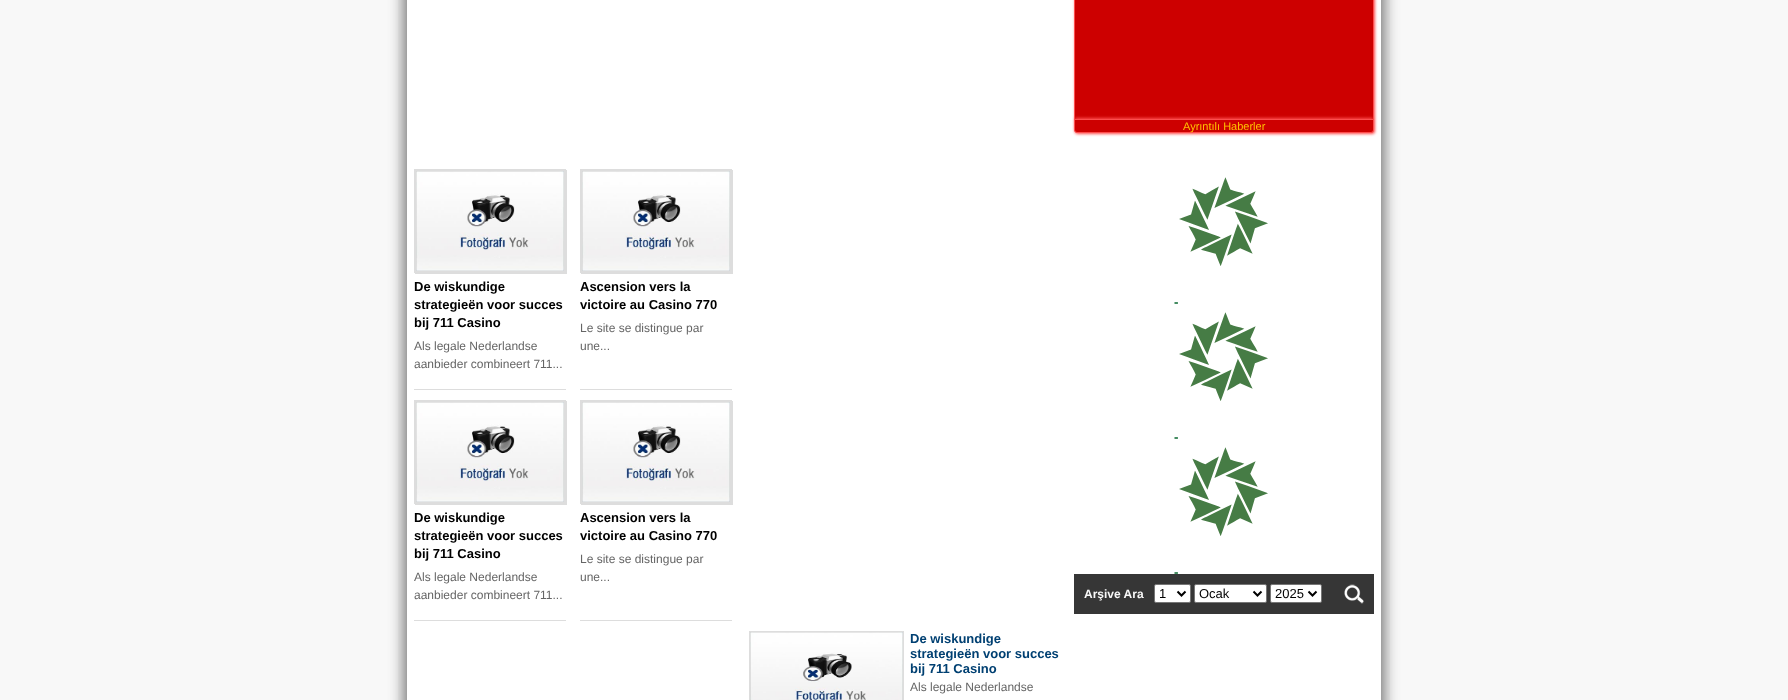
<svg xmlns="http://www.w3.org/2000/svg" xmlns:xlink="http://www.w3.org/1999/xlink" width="1788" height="700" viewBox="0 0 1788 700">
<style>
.cls-1{font:11px Liberation Sans;fill:#ffc200}
.cls-2{font:bold 13px Liberation Sans;fill:#000000}
.cls-3{font:12px Liberation Sans;fill:#656565}
.cls-4{font:bold 13px Liberation Sans;fill:#004072}
.cls-5{font:bold 12px Liberation Sans;fill:#f8f8f8}
.cls-6{font:13px Liberation Sans;fill:#000000}
</style>
<defs>
<clipPath id="clip1"><path d="M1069 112H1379V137H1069ZM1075 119H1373V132H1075Z" clip-rule="evenodd"/></clipPath>
</defs>
<rect width="100%" height="100%" fill="#f8f8f8"/>
<image xlink:href="image0.png" x="398" y="0" width="992" height="700"/>
<rect fill="#000000" fill-opacity="0.5" filter="blur(7.5px)" x="404" y="-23" width="980" height="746"/>
<rect fill="#ffffff" x="407" y="0" width="974" height="700"/>
<rect fill="#fe4e4e" filter="blur(1.5px)" x="1075" y="-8" width="300" height="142" rx="3"/>
<rect fill="#cd0000" stroke="#fe4e4e" x="1074.5" y="-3.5" width="299" height="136" rx="2.5"/>
<g clip-path="url(#clip1)">
<rect fill="#fe4e4e" filter="blur(1.5px)" x="1075" y="118" width="298" height="13"/>
</g>
<rect fill="#fe4e4e" x="1075" y="119" width="298" height="1"/>
<rect fill="#dddddd" x="414" y="389" width="152" height="1"/>
<rect fill="#dddddd" filter="blur(0.5px)" x="415" y="170" width="152" height="104"/>
<rect fill="none" stroke="#dddddd" x="414.5" y="169.5" width="151" height="103"/>
<image xlink:href="image1.png" x="416" y="171" width="148" height="100"/>
<rect fill="#dddddd" x="580" y="389" width="152" height="1"/>
<rect fill="#dddddd" filter="blur(0.5px)" x="581" y="170" width="152" height="104"/>
<rect fill="none" stroke="#dddddd" x="580.5" y="169.5" width="151" height="103"/>
<image xlink:href="image1.png" x="582" y="171" width="148" height="100"/>
<rect fill="#dddddd" x="414" y="620" width="152" height="1"/>
<rect fill="#dddddd" filter="blur(0.5px)" x="415" y="401" width="152" height="104"/>
<rect fill="none" stroke="#dddddd" x="414.5" y="400.5" width="151" height="103"/>
<image xlink:href="image1.png" x="416" y="402" width="148" height="100"/>
<rect fill="#dddddd" x="580" y="620" width="152" height="1"/>
<rect fill="#dddddd" filter="blur(0.5px)" x="581" y="401" width="152" height="104"/>
<rect fill="none" stroke="#dddddd" x="580.5" y="400.5" width="151" height="103"/>
<image xlink:href="image1.png" x="582" y="402" width="148" height="100"/>
<rect fill="none" stroke="#dddddd" x="749.5" y="631.5" width="154" height="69"/>
<image xlink:href="image2.png" x="750" y="632" width="153" height="68"/>
<image xlink:href="image3.png" x="1174" y="177" width="94" height="127"/>
<image xlink:href="image4.png" x="1174" y="312" width="94" height="127"/>
<image xlink:href="image3.png" x="1174" y="447" width="94" height="127"/>
<rect fill="#363636" x="1074" y="574" width="300" height="40"/>
<rect fill="#ffffff" stroke="#767676" x="1154.5" y="584.5" width="36" height="18" rx="1.5"/>
<path fill="none" stroke="#000000" stroke-width="2" d="M1177.5 591.5L1181.5 595.5L1185.5 591.5"/>
<rect fill="#ffffff" stroke="#767676" x="1194.5" y="584.5" width="72" height="18" rx="1.5"/>
<path fill="none" stroke="#000000" stroke-width="2" d="M1253.5 591.5L1257.5 595.5L1261.5 591.5"/>
<rect fill="#ffffff" stroke="#767676" x="1270.5" y="584.5" width="51" height="18" rx="1.5"/>
<path fill="none" stroke="#000000" stroke-width="2" d="M1308.5 591.5L1312.5 595.5L1316.5 591.5"/>
<image xlink:href="image5.png" x="1344" y="584" width="20" height="20"/>
<text class="cls-1" x="1183" y="130">Ayrıntılı Haberler</text>
<text class="cls-2"><tspan x="414" y="291">De wiskundige</tspan><tspan x="414" y="309">strategieën voor succes</tspan><tspan x="414" y="327">bij 711 Casino</tspan></text>
<text class="cls-3"><tspan x="414" y="350">Als legale Nederlandse</tspan><tspan x="414" y="368">aanbieder combineert 711...</tspan></text>
<text class="cls-2"><tspan x="580" y="291">Ascension vers la</tspan><tspan x="580" y="309">victoire au Casino 770</tspan></text>
<text class="cls-3"><tspan x="580" y="332">Le site se distingue par</tspan><tspan x="580" y="350">une...</tspan></text>
<text class="cls-2"><tspan x="414" y="522">De wiskundige</tspan><tspan x="414" y="540">strategieën voor succes</tspan><tspan x="414" y="558">bij 711 Casino</tspan></text>
<text class="cls-3"><tspan x="414" y="581">Als legale Nederlandse</tspan><tspan x="414" y="599">aanbieder combineert 711...</tspan></text>
<text class="cls-2"><tspan x="580" y="522">Ascension vers la</tspan><tspan x="580" y="540">victoire au Casino 770</tspan></text>
<text class="cls-3"><tspan x="580" y="563">Le site se distingue par</tspan><tspan x="580" y="581">une...</tspan></text>
<text class="cls-4"><tspan x="910" y="643">De wiskundige</tspan><tspan x="910" y="658">strategieën voor succes</tspan><tspan x="910" y="673">bij 711 Casino</tspan></text>
<text class="cls-3" x="910" y="691">Als legale Nederlandse</text>
<text class="cls-5" x="1084" y="598">Arşive Ara</text>
<text class="cls-6" x="1159" y="598">1</text>
<text class="cls-6" x="1199" y="598">Ocak</text>
<text class="cls-6" x="1275" y="598">2025</text>
</svg>
